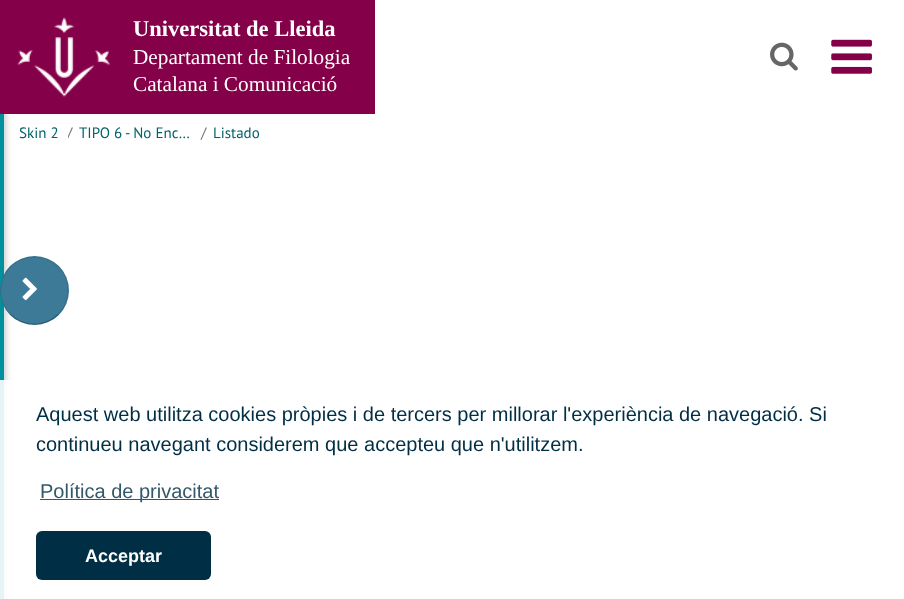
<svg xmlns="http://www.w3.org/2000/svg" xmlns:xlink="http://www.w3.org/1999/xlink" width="904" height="599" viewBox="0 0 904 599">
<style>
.cls-1{font:bold 22.5px Liberation Serif;fill:#ffffff}
.cls-2{font:21.25px Liberation Serif;fill:#ffffff}
.cls-3{font:15px PT Sans;fill:#016269}
.cls-4{font:15px PT Sans;fill:#737373}
.cls-5{font:20px Liberation Sans;fill:#002e45}
.cls-6{font:20px Liberation Sans;fill:#33586a}
.cls-7{font:bold 18px Liberation Sans;fill:#ffffff}
</style>
<defs>
<clipPath id="clip1"><rect x="68" y="123" width="125" height="21"/></clipPath>
</defs>
<rect width="100%" height="100%" fill="#ffffff"/>
<rect fill="#000000" fill-opacity="0.2" filter="blur(3px)" x="-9" y="-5" width="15" height="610"/>
<rect fill="#840048" x="0" y="0" width="375" height="114"/>
<image xlink:href="image0.png" x="17" y="17" width="94" height="80"/>
<image xlink:href="image1.png" x="770" y="42" width="28" height="29"/>
<image xlink:href="image2.png" x="831" y="39" width="41" height="35"/>
<rect fill="#01919c" x="0" y="114" width="4" height="485"/>
<circle fill="#3d7a98" cx="34.5" cy="290.5" r="34.5"/>
<path fill="none" stroke="#000000" stroke-opacity="0.25" stroke-width="1.2" d="M58 314.5C45 327.5 23.5 327.5 10.5 314.5"/>
<path fill="none" stroke="#000000" stroke-opacity="0.1" stroke-width="1.2" d="M10.5 314.5C2.5 306.5-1 295 1.5 284C9 244.5 68 250 68 290.5C68 299.5 64.5 308 58 314.5"/>
<image xlink:href="image3.png" x="22" y="277" width="15" height="24"/>
<rect fill="#ffffff" fill-opacity="0.9" x="0" y="380" width="11" height="219"/>
<rect fill="#33586a" x="40" y="499" width="179" height="1"/>
<rect fill="#002e45" x="36" y="531" width="175" height="49" rx="6"/>
<text class="cls-1" x="133" y="36">Universitat de Lleida</text>
<text class="cls-2"><tspan x="133" y="64">Departament de Filologia</tspan><tspan x="133" y="91">Catalana i Comunicació</tspan></text>
<text class="cls-3" x="19" y="138">Skin 2</text>
<g clip-path="url(#clip1)">
<text class="cls-4" x="67" y="138">/</text>
</g>
<text class="cls-3" x="79" y="138">TIPO 6 - No Enc…</text>
<text class="cls-4" x="201" y="138">/</text>
<text class="cls-3" x="213" y="138">Listado</text>
<text class="cls-5"><tspan x="36" y="421">Aquest web utilitza cookies pròpies i de tercers per millorar l'experiència de navegació. Si</tspan><tspan x="36" y="451">continueu navegant considerem que accepteu que n'utilitzem.</tspan></text>
<text class="cls-6" x="40" y="498">Política de privacitat</text>
<text class="cls-7" x="85" y="562">Acceptar</text>
</svg>
